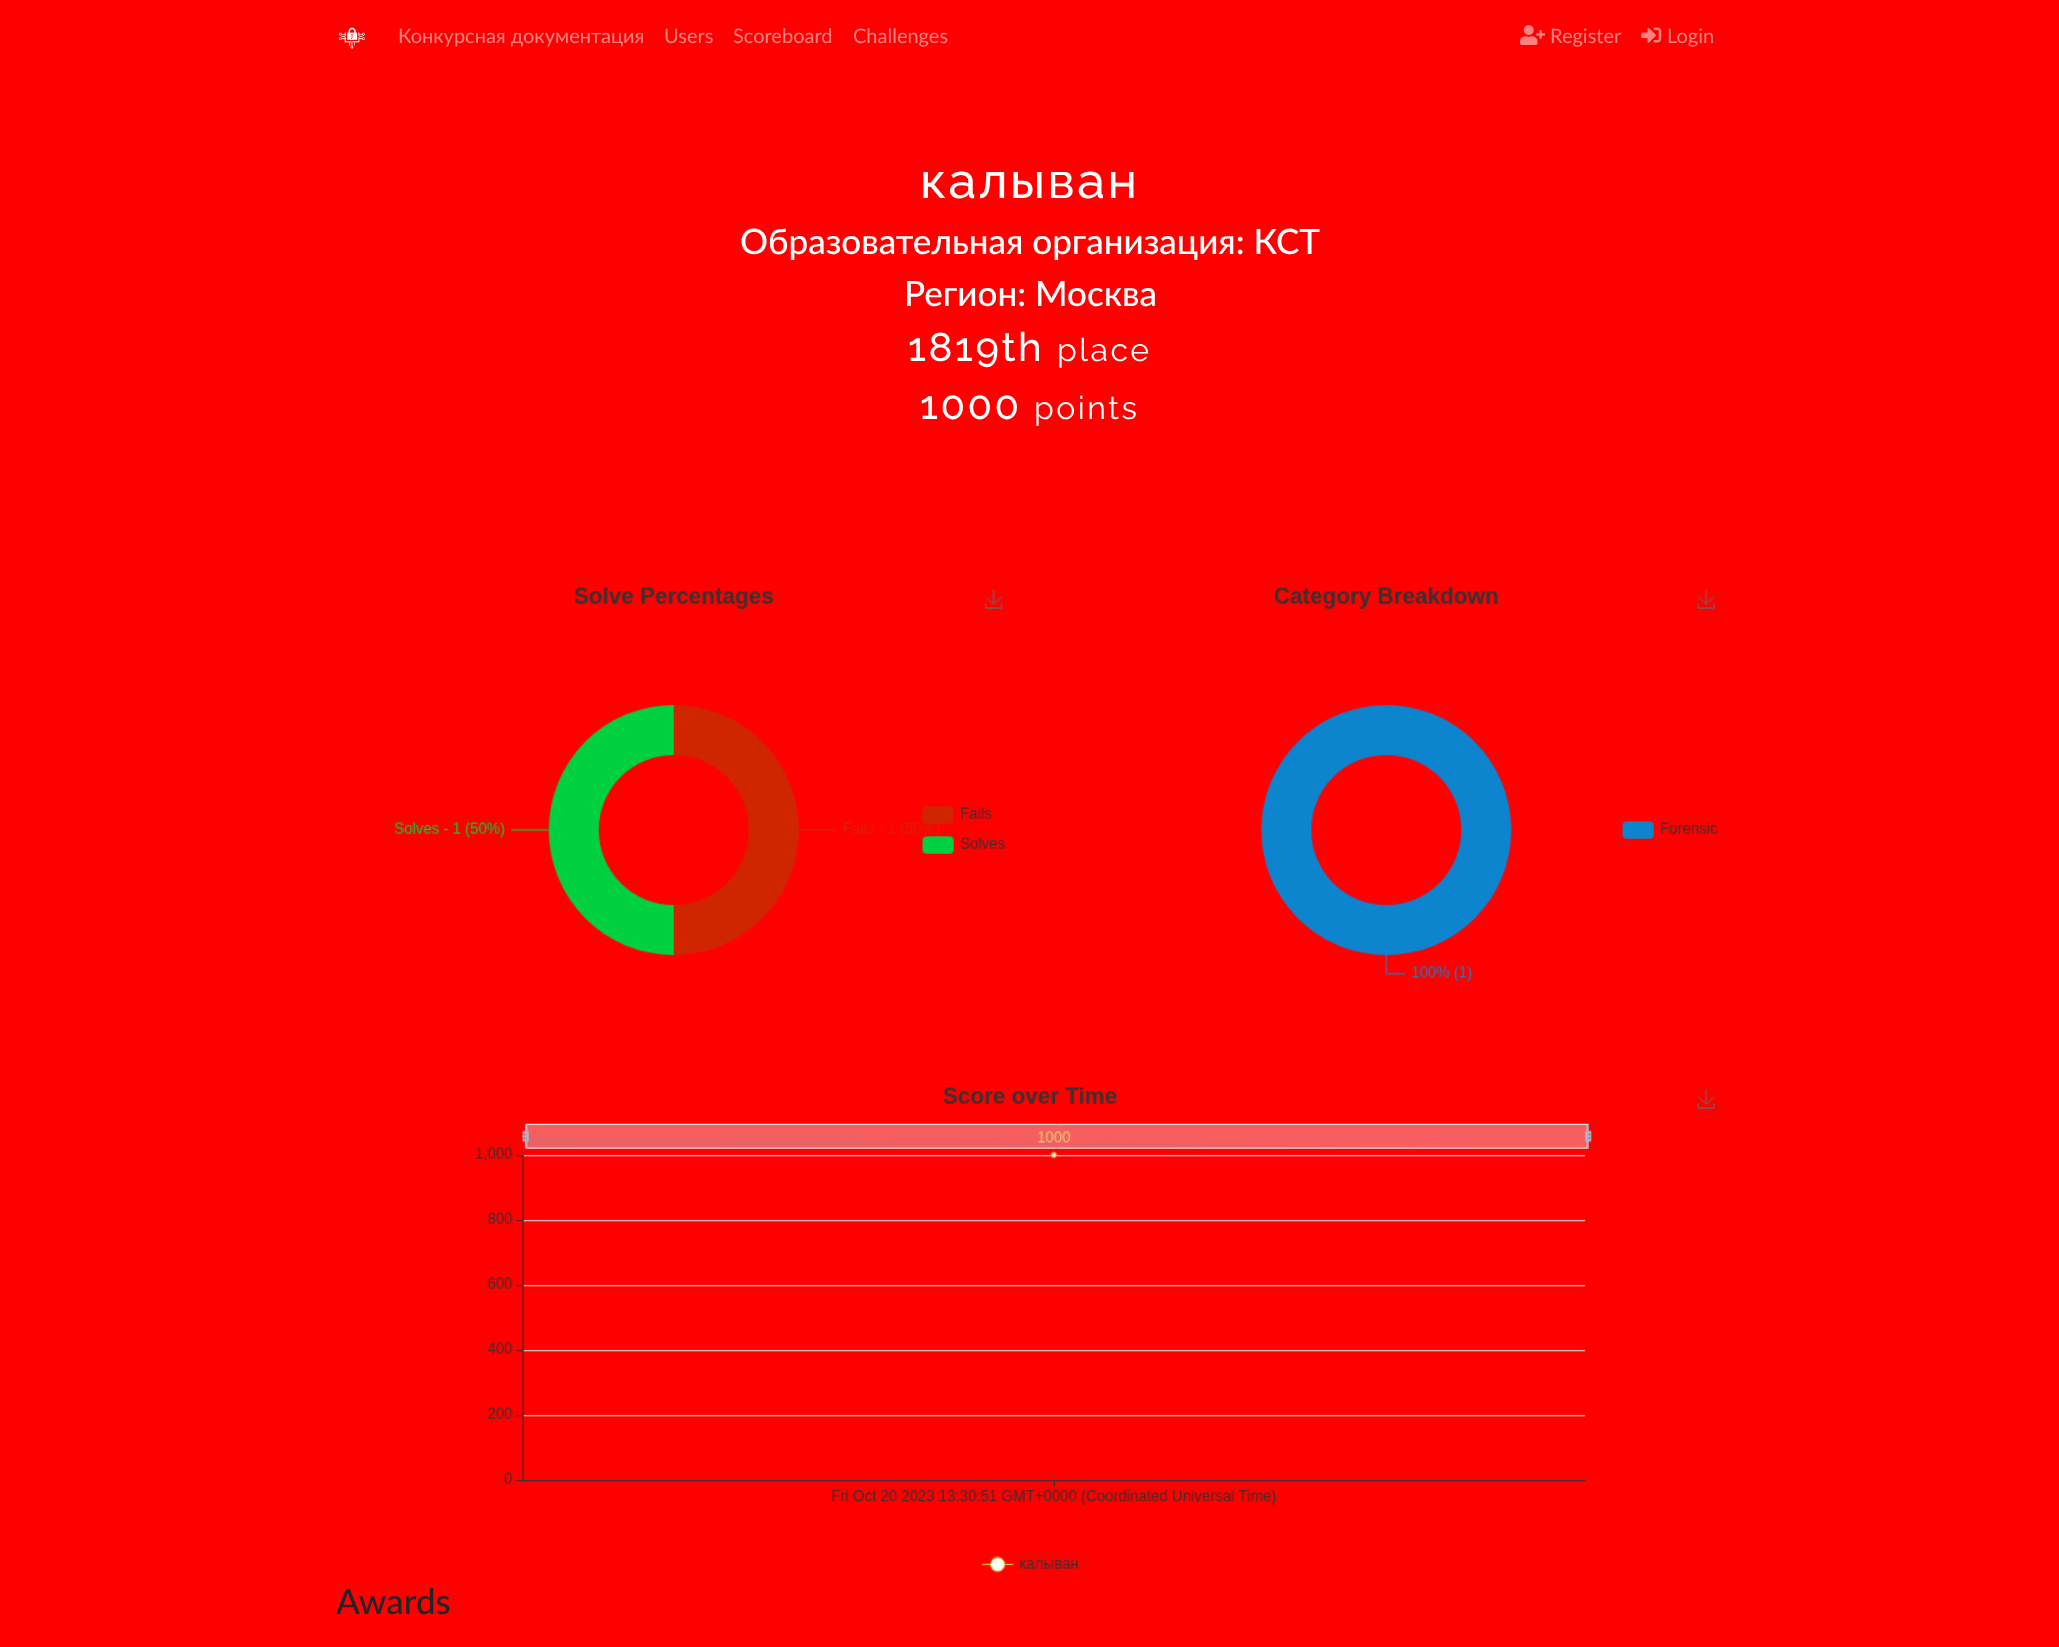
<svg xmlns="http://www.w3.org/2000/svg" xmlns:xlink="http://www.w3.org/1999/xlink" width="2059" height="1647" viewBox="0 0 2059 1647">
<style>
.cls-1{font:20px Lato;fill:#ff8080}
.cls-2{font:500 50px Raleway;letter-spacing:2.5px;fill:#ffffff}
.cls-3{font:500 35px Lato;fill:#ffffff}
.cls-4{font:500 40px Raleway;letter-spacing:2.5px;fill:#ffffff}
.cls-5{font:32px Raleway;letter-spacing:2.5px;fill:#ffffff}
.cls-6{font:500 35px Lato;fill:#212529}
</style>
<rect width="100%" height="100%" fill="#ff0000"/>
<image xlink:href="image0.png" x="338" y="27" width="27" height="22"/>
<image xlink:href="image1.png" x="1520" y="25" width="25" height="20"/>
<image xlink:href="image2.png" x="1641" y="27" width="21" height="16"/>
<image xlink:href="image3.png" x="394" y="587" width="612" height="369"/>
<image xlink:href="image4.png" x="1261" y="587" width="457" height="395"/>
<image xlink:href="image5.png" x="475" y="1087" width="1241" height="486"/>
<text class="cls-1" x="398" y="43">Конкурсная документация</text>
<text class="cls-1" x="664" y="43">Users</text>
<text class="cls-1" x="733" y="43">Scoreboard</text>
<text class="cls-1" x="853" y="43">Challenges</text>
<text class="cls-1" x="1550" y="43">Register</text>
<text class="cls-1" x="1667" y="43">Login</text>
<text class="cls-2" x="920" y="198">калыван</text>
<text class="cls-3" x="740" y="254">Образовательная организация: КСТ</text>
<text class="cls-3" x="904" y="306">Регион: Москва</text>
<text class="cls-4" x="908" y="361">1819th</text>
<text class="cls-5" x="1057" y="361">place</text>
<text class="cls-4" x="920" y="419">1000</text>
<text class="cls-5" x="1034" y="419">points</text>
<text class="cls-6" x="336" y="1614">Awards</text>
</svg>
